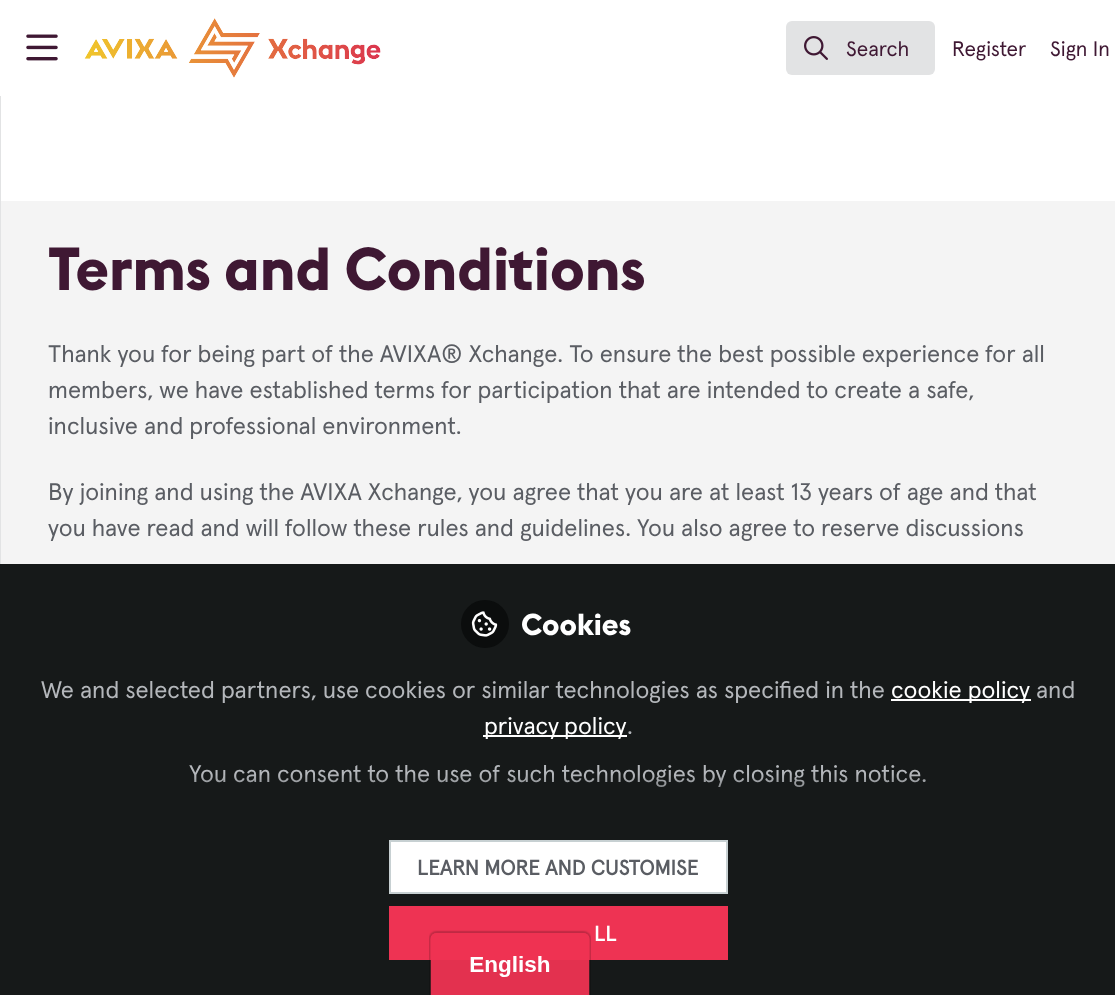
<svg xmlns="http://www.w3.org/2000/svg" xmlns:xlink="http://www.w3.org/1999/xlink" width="1115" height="995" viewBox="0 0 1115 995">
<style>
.cls-1{font:21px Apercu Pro;fill:#3f1833}
.cls-2{font:bold 60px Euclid;fill:#3f1833}
.cls-3{font:24px Apercu Pro;fill:#5a5d63}
.cls-4{font:bold 30px Euclid;fill:#ffffff}
.cls-5{font:24px Apercu Pro;fill:#b4b7bb}
.cls-6{font:24px Apercu Pro;fill:#ffffff}
.cls-7{font:bold 21px Apercu Pro;fill:#5a5d63}
.cls-8{font:bold 21px Apercu Pro;fill:#ffffff}
</style>
<defs>
<linearGradient id="g1" gradientUnits="userSpaceOnUse" x1="558" y1="822" x2="558" y2="774"><stop offset="0" stop-color="#161919"/><stop offset="1" stop-color="#161919" stop-opacity="0"/></linearGradient>
</defs>
<rect width="100%" height="100%" fill="#f4f4f4"/>
<rect fill="#ffffff" x="0" y="0" width="1115" height="96"/>
<image xlink:href="image0.png" x="26" y="34" width="32" height="27"/>
<image xlink:href="image1.png" x="84" y="18" width="297" height="60"/>
<rect fill="#e2e3e4" x="786" y="21" width="149" height="54" rx="6"/>
<image xlink:href="image2.png" x="804" y="36" width="24" height="24"/>
<rect fill="#e2e3e4" x="0" y="96" width="1" height="468"/>
<rect fill="#ffffff" x="1" y="96" width="1114" height="105"/>
<rect fill="#161919" x="0" y="564" width="1115" height="431"/>
<circle fill="#0b0d0d" cx="485" cy="624" r="24"/>
<image xlink:href="image3.png" x="471" y="611" width="27" height="26"/>
<rect fill="#ffffff" x="891" y="699" width="140" height="2"/>
<rect fill="#ffffff" x="483" y="735" width="144" height="2"/>
<rect fill="#ffffff" stroke="#c7d0d2" stroke-width="2" x="390" y="841" width="337" height="52"/>
<rect fill="#ee3353" x="389" y="906" width="339" height="54"/>
<image xlink:href="image4.png" x="429" y="930" width="162" height="65"/>
<text class="cls-1" x="846" y="56">Search</text>
<text class="cls-1" x="952" y="56">Register</text>
<text class="cls-1" x="1050" y="56">Sign In</text>
<text class="cls-2" x="48" y="290">Terms and Conditions</text>
<text class="cls-3"><tspan x="48" y="362">Thank you for being part of the AVIXA® Xchange. To ensure the best possible experience for all</tspan><tspan x="48" y="398">members, we have established terms for participation that are intended to create a safe,</tspan><tspan x="48" y="434">inclusive and professional environment.</tspan></text>
<text class="cls-3"><tspan x="48" y="500">By joining and using the AVIXA Xchange, you agree that you are at least 13 years of age and that</tspan><tspan x="48" y="536">you have read and will follow these rules and guidelines. You also agree to reserve discussions</tspan></text>
<text class="cls-4" x="521" y="635">Cookies</text>
<text class="cls-5" x="41" y="698">We and selected partners, use cookies or similar technologies as specified in the</text>
<text class="cls-6" x="891" y="698">cookie policy</text>
<text class="cls-5" x="1036" y="698">and</text>
<text class="cls-6" x="484" y="734" word-spacing="-1">privacy policy</text>
<text class="cls-5" x="627" y="734">.</text>
<text class="cls-5" x="189" y="782">You can consent to the use of such technologies by closing this notice.</text>
<rect fill="url(#g1)" x="194" y="775" width="732" height="12"/>
<text class="cls-7" x="417" y="875">LEARN MORE AND CUSTOMISE</text>
<text class="cls-8" x="594" y="941">LL</text>
</svg>
